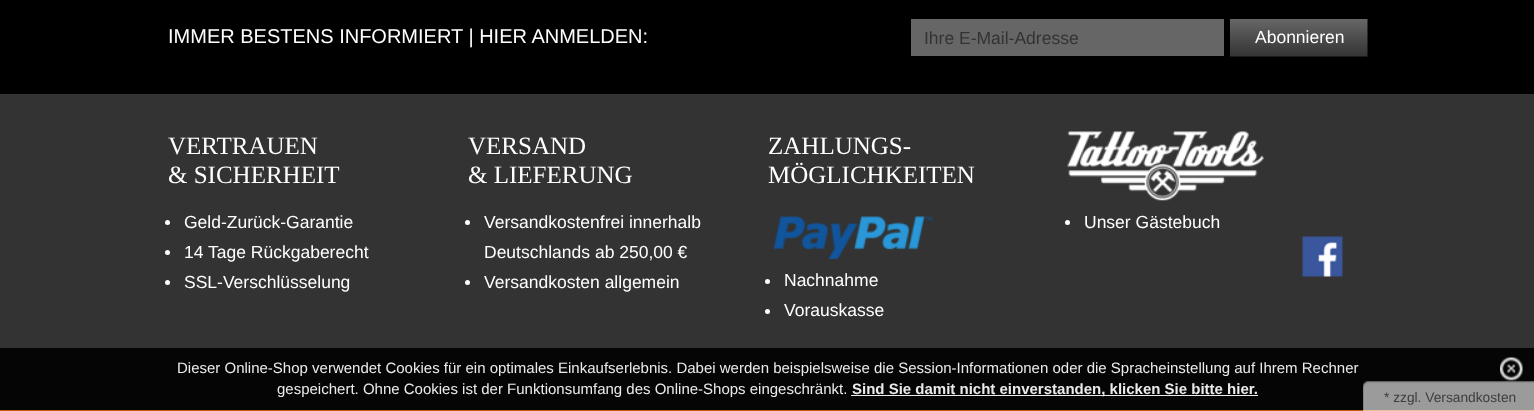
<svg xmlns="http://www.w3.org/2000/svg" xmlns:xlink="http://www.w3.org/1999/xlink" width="1534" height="411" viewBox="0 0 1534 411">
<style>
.cls-1{font:20px Liberation Sans;fill:#ffffff}
.cls-2{font:17.5px Liberation Sans;fill:#333333}
.cls-3{font:17.5px Liberation Sans;fill:#ffffff}
.cls-4{font:25px Liberation Serif;fill:#ffffff}
.cls-5{font:15px Liberation Sans;fill:#ebebeb}
.cls-6{font:bold 15px Liberation Sans;fill:#ebebeb}
.cls-7{font:13.75px Liberation Sans;fill:#3e3e3e}
</style>
<rect width="100%" height="100%" fill="#000000"/>
<rect fill="#666666" x="911" y="19" width="313" height="37"/>
<image xlink:href="image0.png" x="1230" y="19" width="138" height="38"/>
<rect fill="#333333" x="0" y="94" width="1534" height="254"/>
<circle fill="#ffffff" cx="167.5" cy="222.5" r="2.5"/>
<circle fill="#ffffff" cx="167.5" cy="252.5" r="2.5"/>
<circle fill="#ffffff" cx="167.5" cy="282.5" r="2.5"/>
<circle fill="#ffffff" cx="467.5" cy="222.5" r="2.5"/>
<circle fill="#ffffff" cx="467.5" cy="282.5" r="2.5"/>
<image xlink:href="image1.png" x="773" y="216" width="160" height="43"/>
<circle fill="#ffffff" cx="767.5" cy="281.5" r="2.5"/>
<circle fill="#ffffff" cx="767.5" cy="311.5" r="2.5"/>
<image xlink:href="image2.png" x="1067" y="131" width="197" height="70"/>
<circle fill="#ffffff" cx="1067.5" cy="222.5" r="2.5"/>
<image xlink:href="image3.png" x="1302" y="236" width="41" height="41"/>
<rect fill="#050505" x="0" y="348" width="1534" height="62"/>
<rect fill="#c3620b" x="0" y="410" width="1534" height="1"/>
<image xlink:href="image4.png" x="1500" y="357" width="23" height="24"/>
<rect fill="#ebebeb" x="851" y="395" width="407" height="1"/>
<image xlink:href="image5.png" x="1363" y="381" width="171" height="30"/>
<text class="cls-1" x="168" y="43">IMMER BESTENS INFORMIERT | HIER ANMELDEN:</text>
<text class="cls-2" x="924" y="44">Ihre E-Mail-Adresse</text>
<text class="cls-3" x="1255" y="43">Abonnieren</text>
<text class="cls-4"><tspan x="168" y="154">VERTRAUEN</tspan><tspan x="168" y="183">&amp; SICHERHEIT</tspan></text>
<text class="cls-3"><tspan x="184" y="228">Geld-Zurück-Garantie</tspan><tspan x="184" y="258">14 Tage Rückgaberecht</tspan><tspan x="184" y="288">SSL-Verschlüsselung</tspan></text>
<text class="cls-4"><tspan x="468" y="154">VERSAND</tspan><tspan x="468" y="183">&amp; LIEFERUNG</tspan></text>
<text class="cls-3"><tspan x="484" y="228">Versandkostenfrei innerhalb</tspan><tspan x="484" y="258">Deutschlands ab 250,00 €</tspan><tspan x="484" y="288">Versandkosten allgemein</tspan></text>
<text class="cls-4"><tspan x="768" y="154">ZAHLUNGS-</tspan><tspan x="768" y="183">MÖGLICHKEITEN</tspan></text>
<text class="cls-3"><tspan x="784" y="286">Nachnahme</tspan><tspan x="784" y="316">Vorauskasse</tspan></text>
<text class="cls-3" x="1084" y="228">Unser Gästebuch</text>
<text class="cls-5" x="177" y="373">Dieser Online-Shop verwendet Cookies für ein optimales Einkaufserlebnis. Dabei werden beispielsweise die Session-Informationen oder die Spracheinstellung auf Ihrem Rechner</text>
<text class="cls-5" x="277" y="394">gespeichert. Ohne Cookies ist der Funktionsumfang des Online-Shops eingeschränkt.</text>
<text class="cls-6" x="852" y="394">Sind Sie damit nicht einverstanden, klicken Sie bitte hier.</text>
<text class="cls-7" x="1384" y="402">* zzgl. Versandkosten</text>
</svg>
